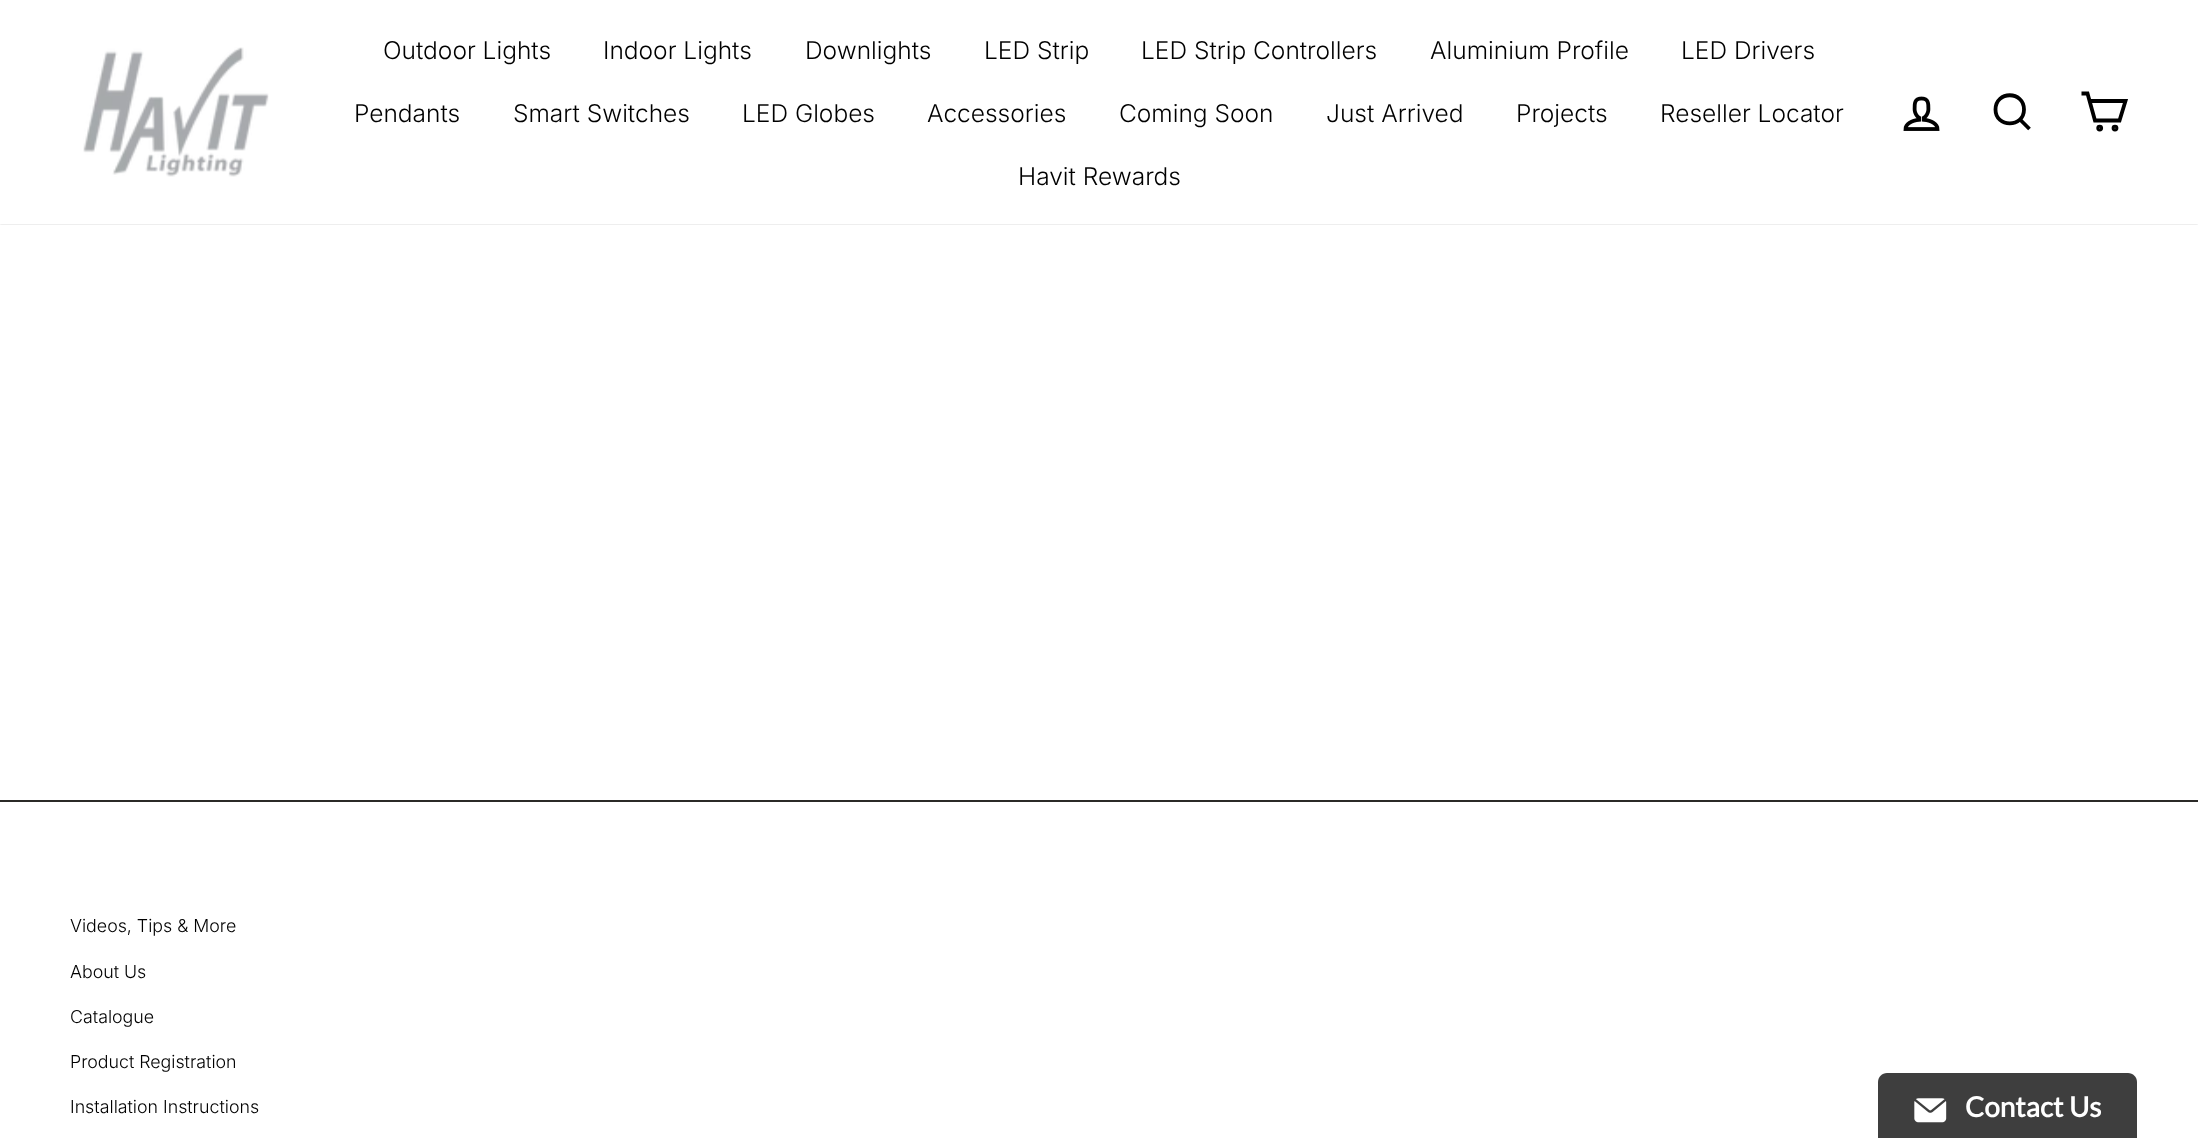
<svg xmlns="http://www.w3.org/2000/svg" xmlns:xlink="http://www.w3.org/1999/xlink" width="2198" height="1138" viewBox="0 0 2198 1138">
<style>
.cls-1{font:300 24.5px Inter;fill:#000000}
.cls-2{font:300 17.8px Inter;fill:#000000}
.cls-3{font:bold 28px Lato;fill:#ffffff}
</style>
<defs>
<clipPath id="clip1"><rect x="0" y="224" width="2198" height="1"/></clipPath>
</defs>
<rect width="100%" height="100%" fill="#ffffff"/>
<g clip-path="url(#clip1)">
<rect fill="#000000" fill-opacity="0.2" filter="blur(1px)" x="0" y="0" width="2198" height="224"/>
</g>
<image xlink:href="image0.png" x="83" y="47" width="186" height="130"/>
<image xlink:href="image1.png" x="1903" y="96" width="37" height="35"/>
<path fill="none" stroke="#000000" stroke-width="3.8" d="M2024 109.5C2024 128 1995.5 128 1995.5 109.5C1995.5 90.5 2024 90.5 2024 109.5ZM2029.5 129L2020 119.5"/>
<path fill="none" stroke="#000000" stroke-width="3.8" d="M2089.5 101H2125.5L2119.5 120.5H2095L2087.5 93.5H2081.5"/>
<circle fill="none" stroke="#000000" stroke-width="3.8" cx="2099.7" cy="128.1" r="1.5"/>
<circle fill="none" stroke="#000000" stroke-width="3.8" cx="2115" cy="128.1" r="1.5"/>
<rect fill="#2b2a27" x="0" y="800" width="2198" height="2"/>
<path fill="#3e3e3e" d="M1887 1073H2128C2133 1073 2137 1077 2137 1082V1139H1878V1082C1878 1077 1882 1073 1887 1073Z"/>
<image xlink:href="image2.png" x="1914" y="1098" width="33" height="25"/>
<text class="cls-1" x="383" y="59">Outdoor Lights</text>
<text class="cls-1" x="603" y="59">Indoor Lights</text>
<text class="cls-1" x="805" y="59">Downlights</text>
<text class="cls-1" x="984" y="59">LED Strip</text>
<text class="cls-1" x="1141" y="59">LED Strip Controllers</text>
<text class="cls-1" x="1430" y="59">Aluminium Profile</text>
<text class="cls-1" x="1681" y="59">LED Drivers</text>
<text class="cls-1" x="354" y="122">Pendants</text>
<text class="cls-1" x="513" y="122">Smart Switches</text>
<text class="cls-1" x="742" y="122">LED Globes</text>
<text class="cls-1" x="927" y="122">Accessories</text>
<text class="cls-1" x="1119" y="122">Coming Soon</text>
<text class="cls-1" x="1326" y="122">Just Arrived</text>
<text class="cls-1" x="1516" y="122">Projects</text>
<text class="cls-1" x="1660" y="122">Reseller Locator</text>
<text class="cls-1" x="1018" y="185">Havit Rewards</text>
<text class="cls-2" x="70" y="932">Videos, Tips &amp; More</text>
<text class="cls-2" x="70" y="978">About Us</text>
<text class="cls-2" x="70" y="1023">Catalogue</text>
<text class="cls-2" x="70" y="1068">Product Registration</text>
<text class="cls-2" x="70" y="1113">Installation Instructions</text>
<text class="cls-3" x="1965" y="1117">Contact Us</text>
</svg>
